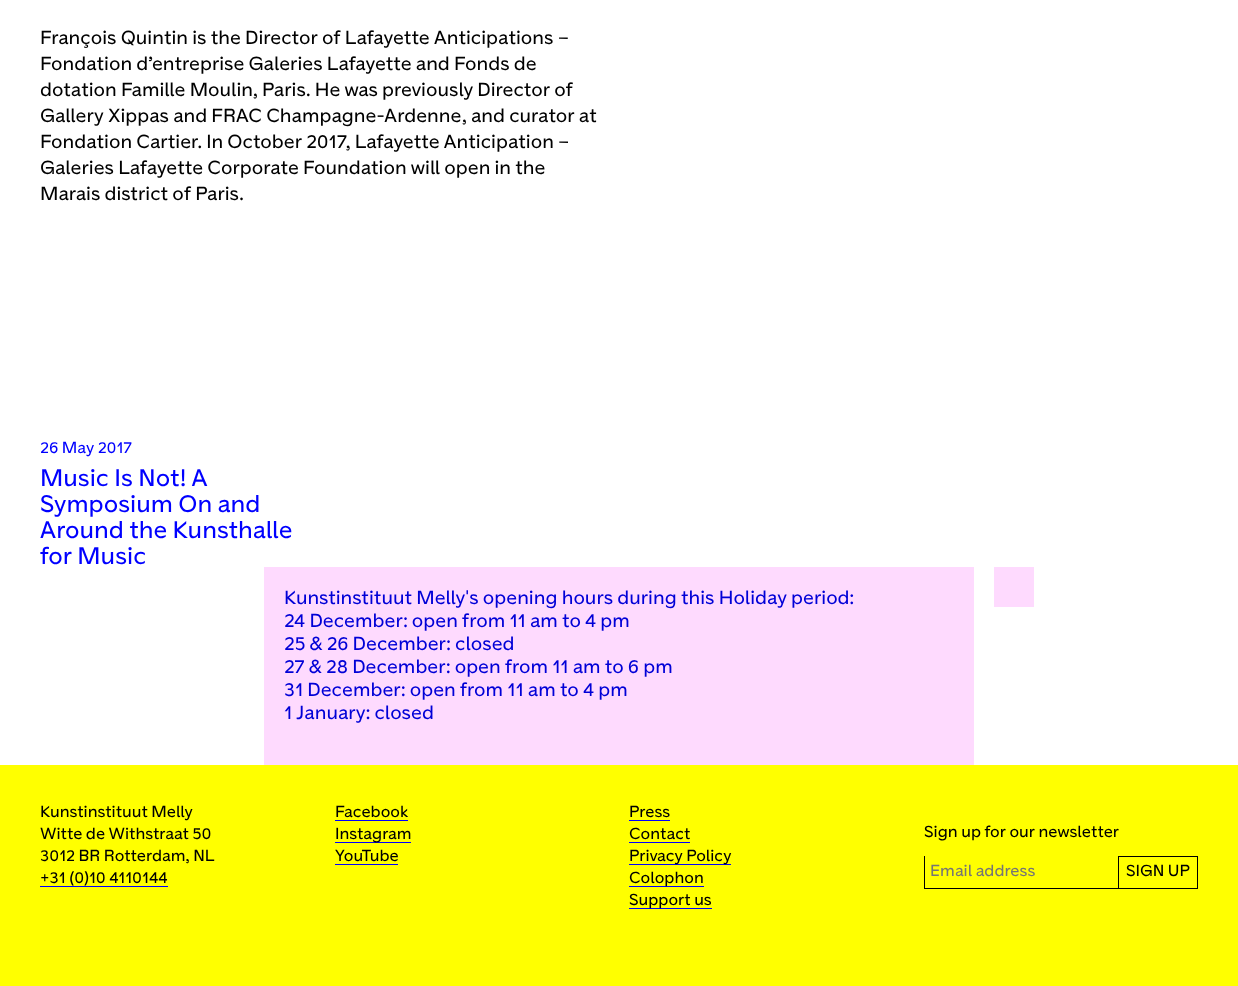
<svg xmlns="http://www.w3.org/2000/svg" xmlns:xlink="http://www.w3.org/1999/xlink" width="1238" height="986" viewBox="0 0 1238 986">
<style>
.cls-1{font:19px 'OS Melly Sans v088';fill:#000000}
.cls-2{font:16px 'OS Melly Sans v088';fill:#0000ff}
.cls-3{font:24px 'OS Melly Sans v088';fill:#0000ff}
.cls-4{font:19px 'OS Melly Sans v088';fill:#0000d7}
.cls-5{font:16px 'OS Melly Sans v088';fill:#000000}
.cls-6{font:16px 'OS Melly Sans v088';fill:#757575}
</style>
<rect width="100%" height="100%" fill="#ffffff"/>
<rect fill="#fedafe" x="264" y="567" width="710" height="198"/>
<rect fill="#fedafe" x="994" y="567" width="40" height="40"/>
<rect fill="#ffff00" x="0" y="765" width="1238" height="221"/>
<rect fill="#0000ff" x="40" y="886" width="128" height="1"/>
<rect fill="#0000ff" x="335" y="820" width="73" height="1"/>
<rect fill="#0000ff" x="335" y="842" width="76" height="1"/>
<rect fill="#0000ff" x="335" y="864" width="63" height="1"/>
<rect fill="#0000ff" x="629" y="820" width="41" height="1"/>
<rect fill="#0000ff" x="629" y="842" width="61" height="1"/>
<rect fill="#0000ff" x="629" y="864" width="102" height="1"/>
<rect fill="#0000ff" x="629" y="886" width="75" height="1"/>
<rect fill="#0000ff" x="629" y="908" width="83" height="1"/>
<rect fill="#000000" x="924" y="888" width="194" height="1"/>
<rect fill="#000000" x="924" y="856" width="1" height="33"/>
<rect fill="none" stroke="#000000" x="1118.5" y="856.5" width="79" height="32"/>
<text class="cls-1"><tspan x="40" y="44">François Quintin is the Director of Lafayette Anticipations –</tspan><tspan x="40" y="70">Fondation d’entreprise Galeries Lafayette and Fonds de</tspan><tspan x="40" y="96">dotation Famille Moulin, Paris. He was previously Director of</tspan><tspan x="40" y="122">Gallery Xippas and FRAC Champagne-Ardenne, and curator at</tspan><tspan x="40" y="148">Fondation Cartier. In October 2017, Lafayette Anticipation –</tspan><tspan x="40" y="174">Galeries Lafayette Corporate Foundation will open in the</tspan><tspan x="40" y="200">Marais district of Paris.</tspan></text>
<text class="cls-2" x="40" y="453">26 May 2017</text>
<text class="cls-3"><tspan x="40" y="486">Music Is Not! A</tspan><tspan x="40" y="512">Symposium On and</tspan><tspan x="40" y="538">Around the Kunsthalle</tspan><tspan x="40" y="564">for Music</tspan></text>
<text class="cls-4"><tspan x="284" y="604">Kunstinstituut Melly's opening hours during this Holiday period:</tspan><tspan x="284" y="627">24 December: open from 11 am to 4 pm</tspan><tspan x="284" y="650">25 &amp; 26 December: closed</tspan><tspan x="284" y="673">27 &amp; 28 December: open from 11 am to 6 pm</tspan><tspan x="284" y="696">31 December: open from 11 am to 4 pm</tspan><tspan x="284" y="719">1 January: closed</tspan></text>
<text class="cls-5"><tspan x="40" y="817">Kunstinstituut Melly</tspan><tspan x="40" y="839">Witte de Withstraat 50</tspan><tspan x="40" y="861">3012 BR Rotterdam, NL</tspan><tspan x="40" y="883">+31 (0)10 4110144</tspan></text>
<text class="cls-5"><tspan x="335" y="817">Facebook</tspan><tspan x="335" y="839">Instagram</tspan><tspan x="335" y="861">YouTube</tspan></text>
<text class="cls-5"><tspan x="629" y="817">Press</tspan><tspan x="629" y="839">Contact</tspan><tspan x="629" y="861">Privacy Policy</tspan><tspan x="629" y="883">Colophon</tspan><tspan x="629" y="905">Support us</tspan></text>
<text class="cls-5" x="924" y="837">Sign up for our newsletter</text>
<text class="cls-6" x="930" y="876">Email address</text>
<text class="cls-5" x="1126" y="876">SIGN UP</text>
</svg>
